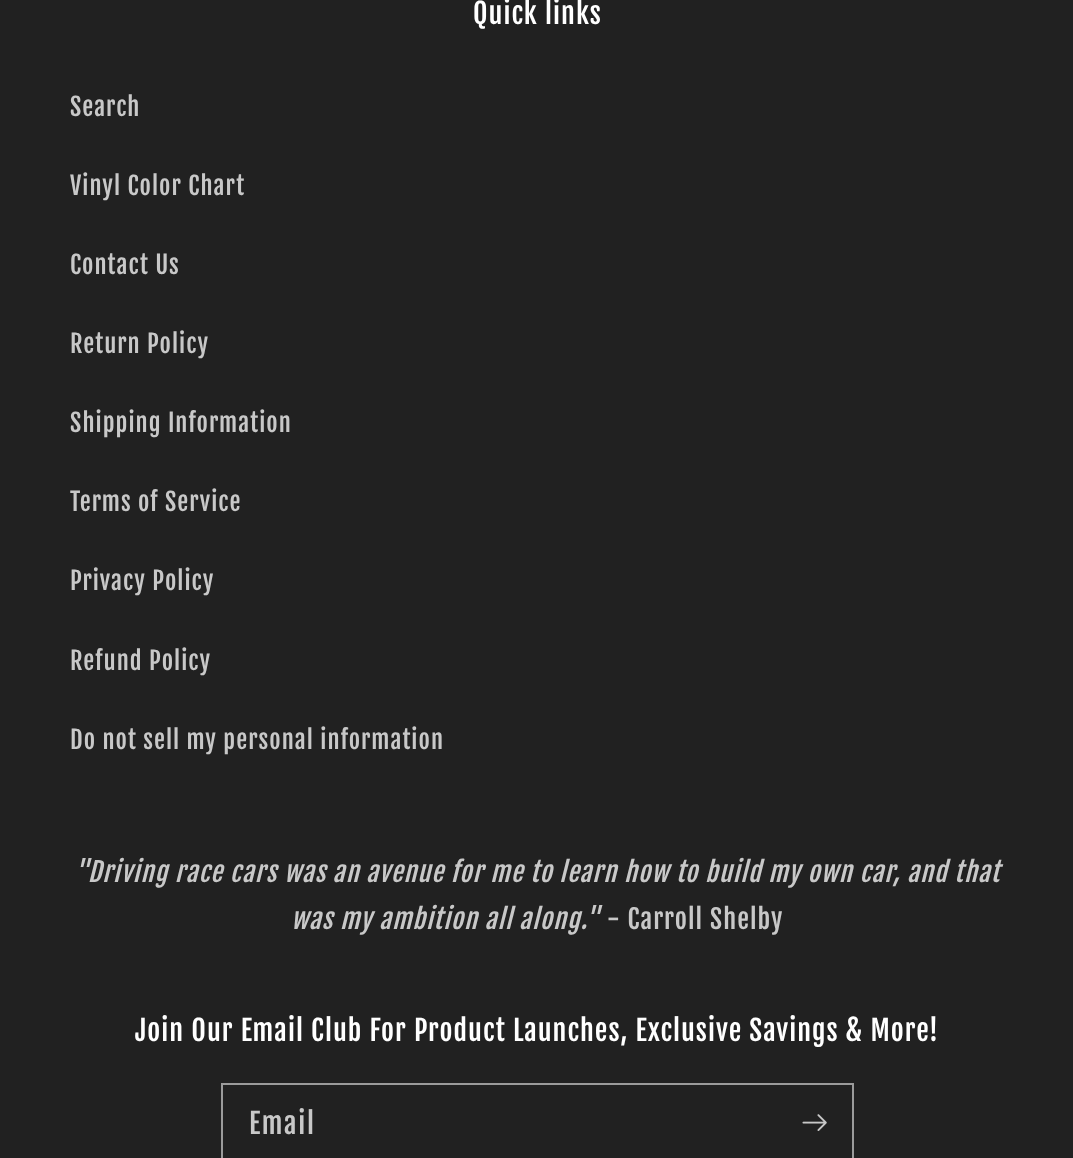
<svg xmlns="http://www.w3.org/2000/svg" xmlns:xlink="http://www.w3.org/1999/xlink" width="1073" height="1158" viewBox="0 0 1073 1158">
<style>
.cls-1{font:28px Fjalla One;letter-spacing:1.05px;fill:#ffffff}
.cls-2{font:24.5px Fjalla One;letter-spacing:1.05px;fill:#c8c8c8}
.cls-3{font:italic 26.25px Fjalla One;letter-spacing:1.05px;fill:#c8c8c8}
.cls-4{font:26.25px Fjalla One;letter-spacing:1.05px;fill:#c8c8c8}
.cls-5{font:28px Fjalla One;letter-spacing:1.75px;fill:#c8c8c8}
</style>
<rect width="100%" height="100%" fill="#212121"/>
<rect fill="none" stroke="#9b9b9b" stroke-width="2" x="222" y="1084" width="631" height="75"/>
<image xlink:href="image0.png" x="802" y="1114" width="25" height="17"/>
<text class="cls-1" x="473" y="24">Quick links</text>
<text class="cls-2" x="70" y="116">Search</text>
<text class="cls-2" x="70" y="195">Vinyl Color Chart</text>
<text class="cls-2" x="70" y="274">Contact Us</text>
<text class="cls-2" x="70" y="353">Return Policy</text>
<text class="cls-2" x="70" y="432">Shipping Information</text>
<text class="cls-2" x="70" y="511">Terms of Service</text>
<text class="cls-2" x="70" y="590">Privacy Policy</text>
<text class="cls-2" x="70" y="670">Refund Policy</text>
<text class="cls-2" x="70" y="749">Do not sell my personal information</text>
<text class="cls-3" x="74" y="882">"Driving race cars was an avenue for me to learn how to build my own car, and that</text>
<text class="cls-3" x="291" y="929">was my ambition all along."</text>
<text class="cls-4" x="607" y="929">- Carroll Shelby</text>
<text class="cls-1" x="135" y="1041">Join Our Email Club For Product Launches, Exclusive Savings &amp; More!</text>
<text class="cls-5" x="249" y="1134">Email</text>
</svg>
